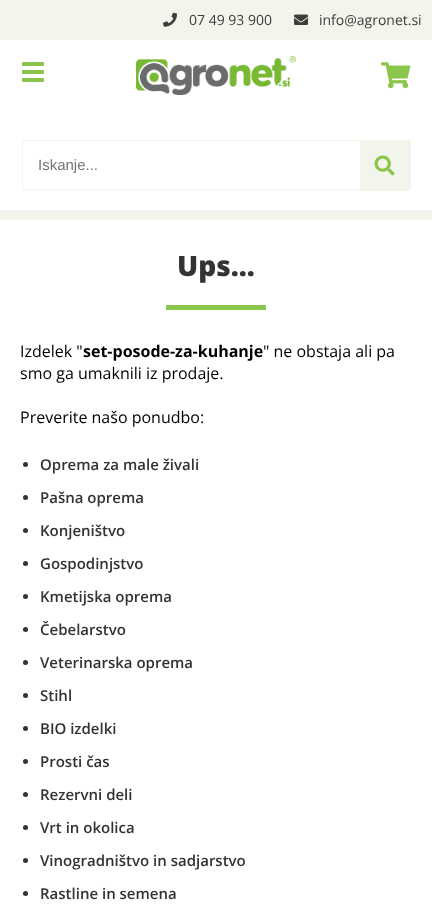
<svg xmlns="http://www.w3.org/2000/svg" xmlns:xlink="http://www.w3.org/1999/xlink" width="432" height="913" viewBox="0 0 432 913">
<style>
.cls-1{font:14px Open Sans;fill:#3c3d3b}
.cls-2{font:15px Liberation Sans;fill:#757575}
.cls-3{font:800 28px Open Sans;fill:#333333}
.cls-4{font:16px Open Sans;fill:#000000}
.cls-5{font:bold 16px Open Sans;fill:#000000}
.cls-6{font:600 15px Open Sans;fill:#333333}
</style>
<rect width="100%" height="100%" fill="#ffffff"/>
<rect fill="#f1f5eb" x="0" y="210" width="432" height="10"/>
<rect fill="#f1f5eb" x="0" y="0" width="432" height="40"/>
<image xlink:href="image0.png" x="163" y="12" width="14" height="15"/>
<image xlink:href="image1.png" x="294" y="14" width="14" height="11"/>
<rect fill="#8ac64b" x="22" y="62" width="22" height="4" rx="1"/>
<rect fill="#8ac64b" x="22" y="70" width="22" height="4" rx="1"/>
<rect fill="#8ac64b" x="22" y="78" width="22" height="4" rx="1"/>
<image xlink:href="image2.png" x="136" y="56" width="160" height="39"/>
<image xlink:href="image3.png" x="381" y="62" width="30" height="27"/>
<rect fill="none" stroke="#f1f5eb" x="22.5" y="140.5" width="388" height="49"/>
<rect fill="#f1f5eb" x="360" y="141" width="50" height="50"/>
<image xlink:href="image4.png" x="374" y="155" width="21" height="21"/>
<rect fill="#8ac64b" x="166" y="305" width="100" height="5"/>
<circle fill="#333333" cx="25.5" cy="464.5" r="2.5"/>
<circle fill="#333333" cx="25.5" cy="497.5" r="2.5"/>
<circle fill="#333333" cx="25.5" cy="530.5" r="2.5"/>
<circle fill="#333333" cx="25.5" cy="563.5" r="2.5"/>
<circle fill="#333333" cx="25.5" cy="596.5" r="2.5"/>
<circle fill="#333333" cx="25.5" cy="629.5" r="2.5"/>
<circle fill="#333333" cx="25.5" cy="662.5" r="2.5"/>
<circle fill="#333333" cx="25.5" cy="695.5" r="2.5"/>
<circle fill="#333333" cx="25.5" cy="728.5" r="2.5"/>
<circle fill="#333333" cx="25.5" cy="761.5" r="2.5"/>
<circle fill="#333333" cx="25.5" cy="794.5" r="2.5"/>
<circle fill="#333333" cx="25.5" cy="827.5" r="2.5"/>
<circle fill="#333333" cx="25.5" cy="860.5" r="2.5"/>
<circle fill="#333333" cx="25.5" cy="893.5" r="2.5"/>
<text class="cls-1" x="189" y="25">07 49 93 900</text>
<text class="cls-1" x="319" y="25">info@agronet.si</text>
<text class="cls-2" x="38" y="170">Iskanje...</text>
<text class="cls-3" x="177" y="276">Ups...</text>
<text class="cls-4" x="20" y="357">Izdelek "</text>
<text class="cls-5" x="83" y="357">set-posode-za-kuhanje</text>
<text class="cls-4" x="263" y="357">" ne obstaja ali pa</text>
<text class="cls-4" x="20" y="379">smo ga umaknili iz prodaje.</text>
<text class="cls-4" x="20" y="423">Preverite našo ponudbo:</text>
<text class="cls-6" x="40" y="470">Oprema za male živali</text>
<text class="cls-6" x="40" y="503">Pašna oprema</text>
<text class="cls-6" x="40" y="536">Konjeništvo</text>
<text class="cls-6" x="40" y="569">Gospodinjstvo</text>
<text class="cls-6" x="40" y="602">Kmetijska oprema</text>
<text class="cls-6" x="40" y="635">Čebelarstvo</text>
<text class="cls-6" x="40" y="668">Veterinarska oprema</text>
<text class="cls-6" x="40" y="701">Stihl</text>
<text class="cls-6" x="40" y="734">BIO izdelki</text>
<text class="cls-6" x="40" y="767">Prosti čas</text>
<text class="cls-6" x="40" y="800">Rezervni deli</text>
<text class="cls-6" x="40" y="833">Vrt in okolica</text>
<text class="cls-6" x="40" y="866">Vinogradništvo in sadjarstvo</text>
<text class="cls-6" x="40" y="899">Rastline in semena</text>
</svg>
